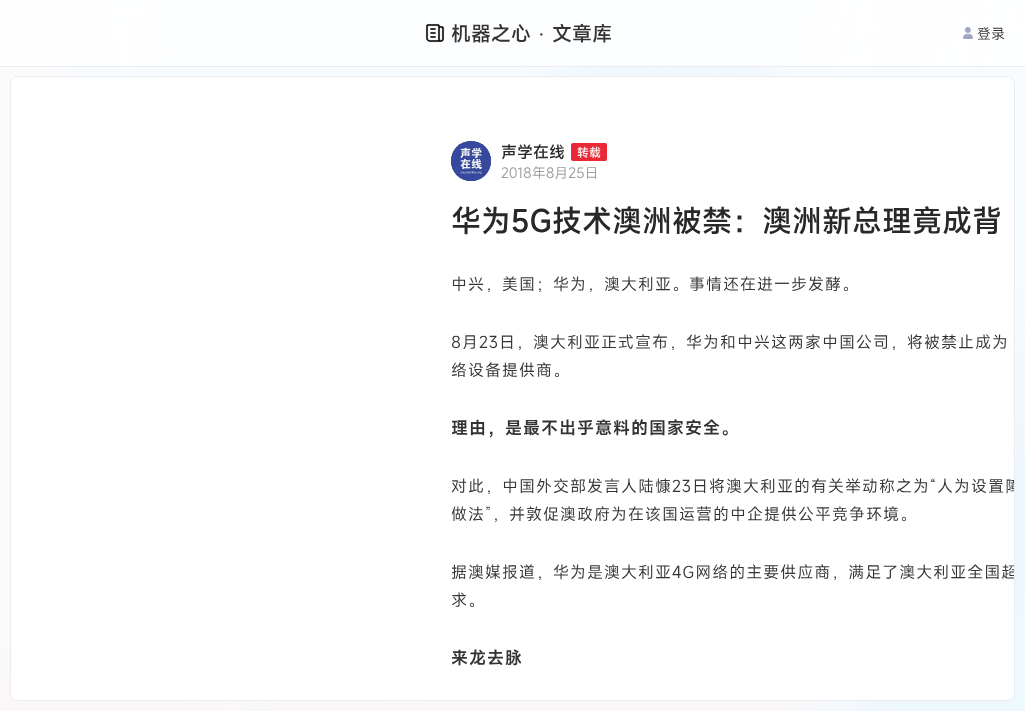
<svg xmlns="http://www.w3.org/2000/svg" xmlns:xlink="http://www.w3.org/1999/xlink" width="1025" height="711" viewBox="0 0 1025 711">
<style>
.cls-1{font:500 20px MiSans;fill:#333333}
.cls-2{font:20px Liberation Serif;fill:#333333}
.cls-3{font:14px MiSans;fill:#333333}
.cls-4{font:500 16px MiSans;fill:#282828}
.cls-5{font:500 12px MiSans;fill:#f6f6f6}
.cls-6{font:14px MiSans;fill:#9d9d9d}
.cls-7{font:500 30px MiSans;fill:#282828}
.cls-8{font:16px MiSans;letter-spacing:1px;fill:#333333}
.cls-9{font:600 17px MiSans;letter-spacing:1px;fill:#333333}
</style>
<defs>
<clipPath id="clip1"><rect x="11" y="77" width="1003" height="623" rx="7"/></clipPath>
</defs>
<rect width="100%" height="100%" fill="#ffffff"/>
<image xlink:href="image0.png" x="0" y="0" width="1025" height="711"/>
<rect fill="#ebecf1" x="0" y="66" width="1025" height="1"/>
<rect fill="#ffffff" fill-opacity="0.8" x="0" y="0" width="1025" height="66"/>
<image xlink:href="image1.png" x="425" y="23" width="20" height="20"/>
<image xlink:href="image2.png" x="963" y="27" width="10" height="12"/>
<rect fill="none" stroke="#ebecf1" x="10.5" y="76.5" width="1004" height="624" rx="7.5"/>
<rect fill="#ffffff" x="11" y="77" width="1003" height="623" rx="7"/>
<circle fill="#333333" cx="471" cy="161" r="20"/>
<image xlink:href="image3.png" x="451" y="141" width="40" height="40"/>
<rect fill="#eb2835" x="571" y="143" width="36" height="18" rx="2"/>
<text class="cls-1" x="451" y="41">机器之心</text>
<text class="cls-2" x="538" y="41">·</text>
<text class="cls-1" x="552" y="41">文章库</text>
<text class="cls-3" x="977" y="39">登录</text>
<text class="cls-4" x="501" y="158">声学在线</text>
<text class="cls-5" x="577" y="157">转载</text>
<text class="cls-6" x="501" y="178">2018年8月25日</text>
<text class="cls-7" x="451" y="232">华为5G技术澳洲被禁：澳洲新总理竟成背</text>
<text class="cls-8" x="451" y="290">中兴，美国；华为，澳大利亚。事情还在进一步发酵。</text>
<text class="cls-8"><tspan x="451" y="348">8月23日，澳大利亚正式宣布，华为和中兴这两家中国公司，将被禁止成为</tspan><tspan x="451" y="376">络设备提供商。</tspan></text>
<text class="cls-9" x="451" y="434">理由，是最不出乎意料的国家安全。</text>
<g clip-path="url(#clip1)">
<text class="cls-8" x="451" y="492">对此，中国外交部发言人陆慷23日将澳大利亚的有关举动称之为“人为设置障</text>
</g>
<text class="cls-8" x="451" y="520">做法”，并敦促澳政府为在该国运营的中企提供公平竞争环境。</text>
<g clip-path="url(#clip1)">
<text class="cls-8" x="451" y="578">据澳媒报道，华为是澳大利亚4G网络的主要供应商，满足了澳大利亚全国超</text>
</g>
<text class="cls-8" x="451" y="606">求。</text>
<text class="cls-9" x="451" y="664">来龙去脉</text>
</svg>
